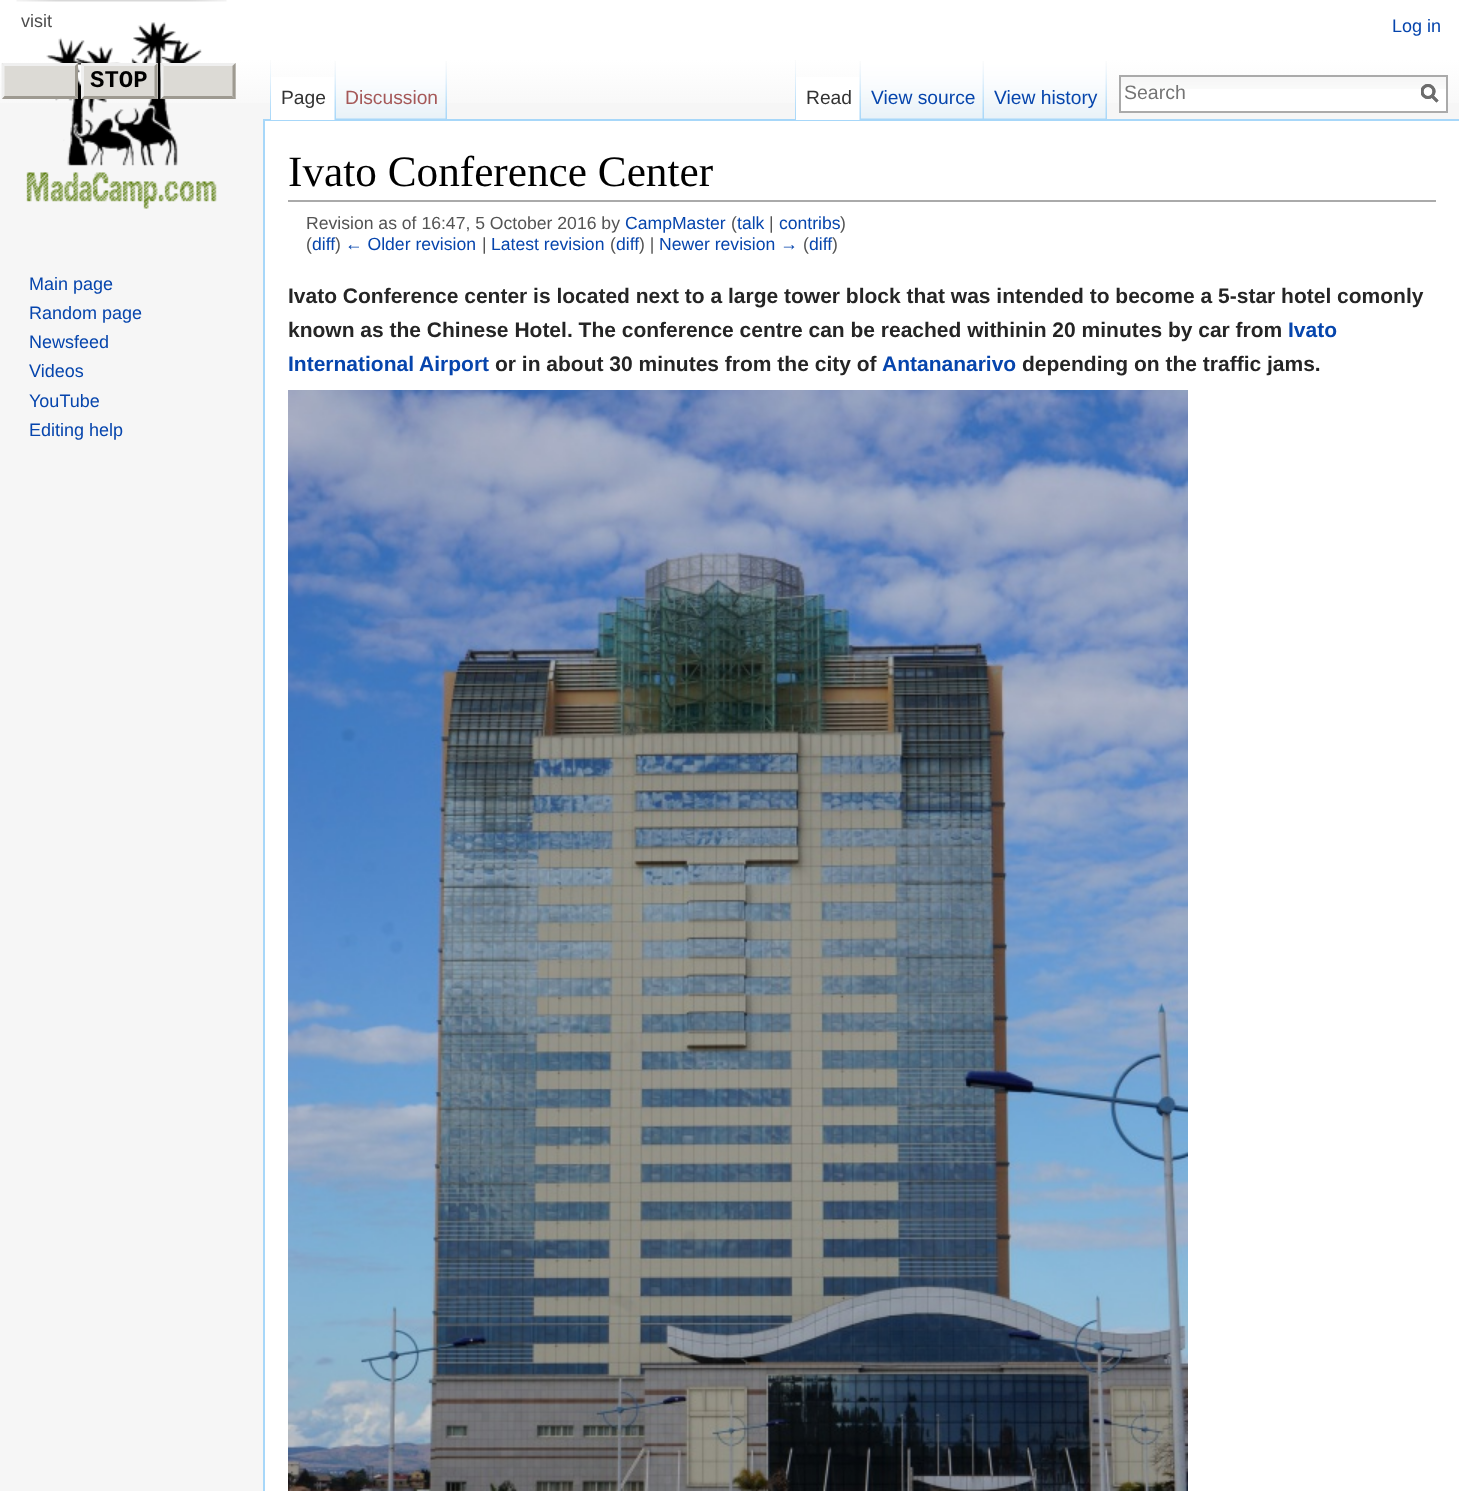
<svg xmlns="http://www.w3.org/2000/svg" xmlns:xlink="http://www.w3.org/1999/xlink" width="1459" height="1491" viewBox="0 0 1459 1491">
<style>
.cls-1{font:18px Liberation Sans;fill:#4d4d4d}
.cls-2{font:bold 24px Liberation Mono;fill:#000000}
.cls-3{font:18px Liberation Sans;fill:#0645ad}
.cls-4{font:19.25px Liberation Sans;fill:#333333}
.cls-5{font:19.25px Liberation Sans;fill:#a55858}
.cls-6{font:19.25px Liberation Sans;fill:#0645ad}
.cls-7{font:19.5px Liberation Sans;fill:#757575}
.cls-8{font:43.25px Liberation Serif;fill:#000000}
.cls-9{font:17.6px Liberation Sans;fill:#545454}
.cls-10{font:17.6px Liberation Sans;fill:#0645ad}
.cls-11{font:bold 21px Liberation Sans;fill:#252525}
.cls-12{font:bold 21px Liberation Sans;fill:#0645ad}
</style>
<defs>
<linearGradient id="g1" gradientUnits="userSpaceOnUse" x1="730" y1="0" x2="730" y2="120"><stop offset="0.5" stop-color="#ffffff"/><stop offset="1" stop-color="#f6f6f6"/></linearGradient>
<clipPath id="clip1"><rect x="1421" y="84" width="18" height="20"/></clipPath>
</defs>
<rect width="100%" height="100%" fill="#f6f6f6"/>
<rect fill="url(#g1)" x="0" y="0" width="1459" height="103"/>
<image xlink:href="image0.png" x="16" y="0" width="211" height="2"/>
<image xlink:href="image1.png" x="26" y="22" width="191" height="187"/>
<rect fill="#dcdad5" x="2" y="63" width="76" height="36"/>
<path fill="#efefef" d="M2 63H78L75 66H4Z"/>
<path fill="#9e9a91" d="M78 63V99L75 96V66Z"/>
<path fill="#9e9a91" d="M78 99H2L4 96H75Z"/>
<path fill="#efefef" d="M1.5 99V63L4.5 66V96Z"/>
<rect fill="#dcdad5" x="81" y="63" width="77" height="36"/>
<path fill="#efefef" d="M81 63H158L154 66H84Z"/>
<path fill="#9e9a91" d="M157.5 63V99L154.5 96V66Z"/>
<path fill="#9e9a91" d="M158 99H81L84 96H154Z"/>
<path fill="#efefef" d="M81 99V63L84 66V96Z"/>
<rect fill="#dcdad5" x="161" y="63" width="75" height="36"/>
<path fill="#efefef" d="M160 63H236L232 66H164Z"/>
<path fill="#9e9a91" d="M235.5 63V99L232.5 96V66Z"/>
<path fill="#9e9a91" d="M236 99H160L164 96H232Z"/>
<path fill="#efefef" d="M160.5 99V63L163.5 66V96Z"/>
<image xlink:href="image2.png" x="270" y="60" width="1" height="59"/>
<rect fill="#a7d7f9" x="263" y="119" width="1196" height="2"/>
<rect fill="#ffffff" x="271" y="77" width="65" height="43"/>
<image xlink:href="image3.png" x="334" y="61" width="2" height="59"/>
<image xlink:href="image4.png" x="336" y="60" width="111" height="60"/>
<image xlink:href="image5.png" x="445" y="61" width="2" height="58"/>
<image xlink:href="image2.png" x="795" y="60" width="1" height="59"/>
<rect fill="#ffffff" x="796" y="77" width="65" height="43"/>
<image xlink:href="image3.png" x="859" y="61" width="2" height="59"/>
<image xlink:href="image6.png" x="861" y="60" width="123" height="60"/>
<image xlink:href="image5.png" x="982" y="61" width="2" height="58"/>
<image xlink:href="image6.png" x="984" y="60" width="123" height="60"/>
<image xlink:href="image5.png" x="1105" y="61" width="2" height="58"/>
<rect fill="#ffffff" x="1121" y="89" width="325" height="22"/>
<image xlink:href="image7.png" x="1121" y="77" width="325" height="12"/>
<rect fill="none" stroke="#aaaaaa" stroke-width="2" x="1120" y="76" width="327" height="36"/>
<path fill="none" stroke="#6c6c6c" stroke-width="3" d="M1437.5 101.5L1431.5 95.5"/>
<g clip-path="url(#clip1)">
<circle fill="none" stroke="#6c6c6c" stroke-width="3" cx="1428" cy="91.5" r="6"/>
</g>
<path fill="none" stroke="#6c6c6c" stroke-width="3" d="M1437.5 101.5L1431.5 95.5"/>
<g clip-path="url(#clip1)">
<circle fill="none" stroke="#6c6c6c" stroke-width="3" cx="1428" cy="91.5" r="6"/>
</g>
<rect fill="#ffffff" x="265" y="121" width="1194" height="1370"/>
<rect fill="#a7d7f9" x="263" y="119" width="2" height="1372"/>
<rect fill="#aaaaaa" x="288" y="200" width="1148" height="2"/>
<image xlink:href="image8.png" x="288" y="390" width="900" height="1101"/>
<text class="cls-1" x="21" y="27">visit</text>
<text class="cls-2" x="90" y="87">STOP</text>
<text class="cls-3"><tspan x="29" y="290">Main page</tspan><tspan x="29" y="319">Random page</tspan><tspan x="29" y="348">Newsfeed</tspan><tspan x="29" y="377">Videos</tspan><tspan x="29" y="407">YouTube</tspan><tspan x="29" y="436">Editing help</tspan></text>
<text class="cls-3" x="1392" y="32">Log in</text>
<text class="cls-4" x="281" y="104">Page</text>
<text class="cls-5" x="345" y="104">Discussion</text>
<text class="cls-4" x="806" y="104">Read</text>
<text class="cls-6" x="871" y="104">View source</text>
<text class="cls-6" x="994" y="104">View history</text>
<text class="cls-7" x="1124" y="99">Search</text>
<text class="cls-8" x="288" y="186">Ivato Conference Center</text>
<text class="cls-9" x="306" y="229">Revision as of 16:47, 5 October 2016 by</text>
<text class="cls-10" x="625" y="229">CampMaster</text>
<text class="cls-9" x="731" y="229">(</text>
<text class="cls-10" x="737" y="229">talk</text>
<text class="cls-9" x="769" y="229">|</text>
<text class="cls-10" x="779" y="229">contribs</text>
<text class="cls-9" x="840" y="229">)</text>
<text class="cls-9" x="306" y="250">(</text>
<text class="cls-10" x="312" y="250">diff</text>
<text class="cls-9" x="335" y="250">)</text>
<text class="cls-10" x="345" y="250">← Older revision</text>
<text class="cls-9" x="482" y="250">|</text>
<text class="cls-10" x="491" y="250">Latest revision</text>
<text class="cls-9" x="610" y="250">(</text>
<text class="cls-10" x="616" y="250">diff</text>
<text class="cls-9" x="639" y="250">) |</text>
<text class="cls-10" x="659" y="250">Newer revision →</text>
<text class="cls-9" x="803" y="250">(</text>
<text class="cls-10" x="809" y="250">diff</text>
<text class="cls-9" x="832" y="250">)</text>
<text class="cls-11"><tspan x="288" y="303">Ivato Conference center is located next to a large tower block that was intended to become a 5-star hotel comonly</tspan><tspan x="288" y="337">known as the Chinese Hotel. The conference centre can be reached withinin 20 minutes by car from</tspan></text>
<text class="cls-12" x="1288" y="337">Ivato</text>
<text class="cls-12" x="288" y="371">International Airport</text>
<text class="cls-11" x="495" y="371">or in about 30 minutes from the city of</text>
<text class="cls-12" x="882" y="371">Antananarivo</text>
<text class="cls-11" x="1022" y="371">depending on the traffic jams.</text>
</svg>
